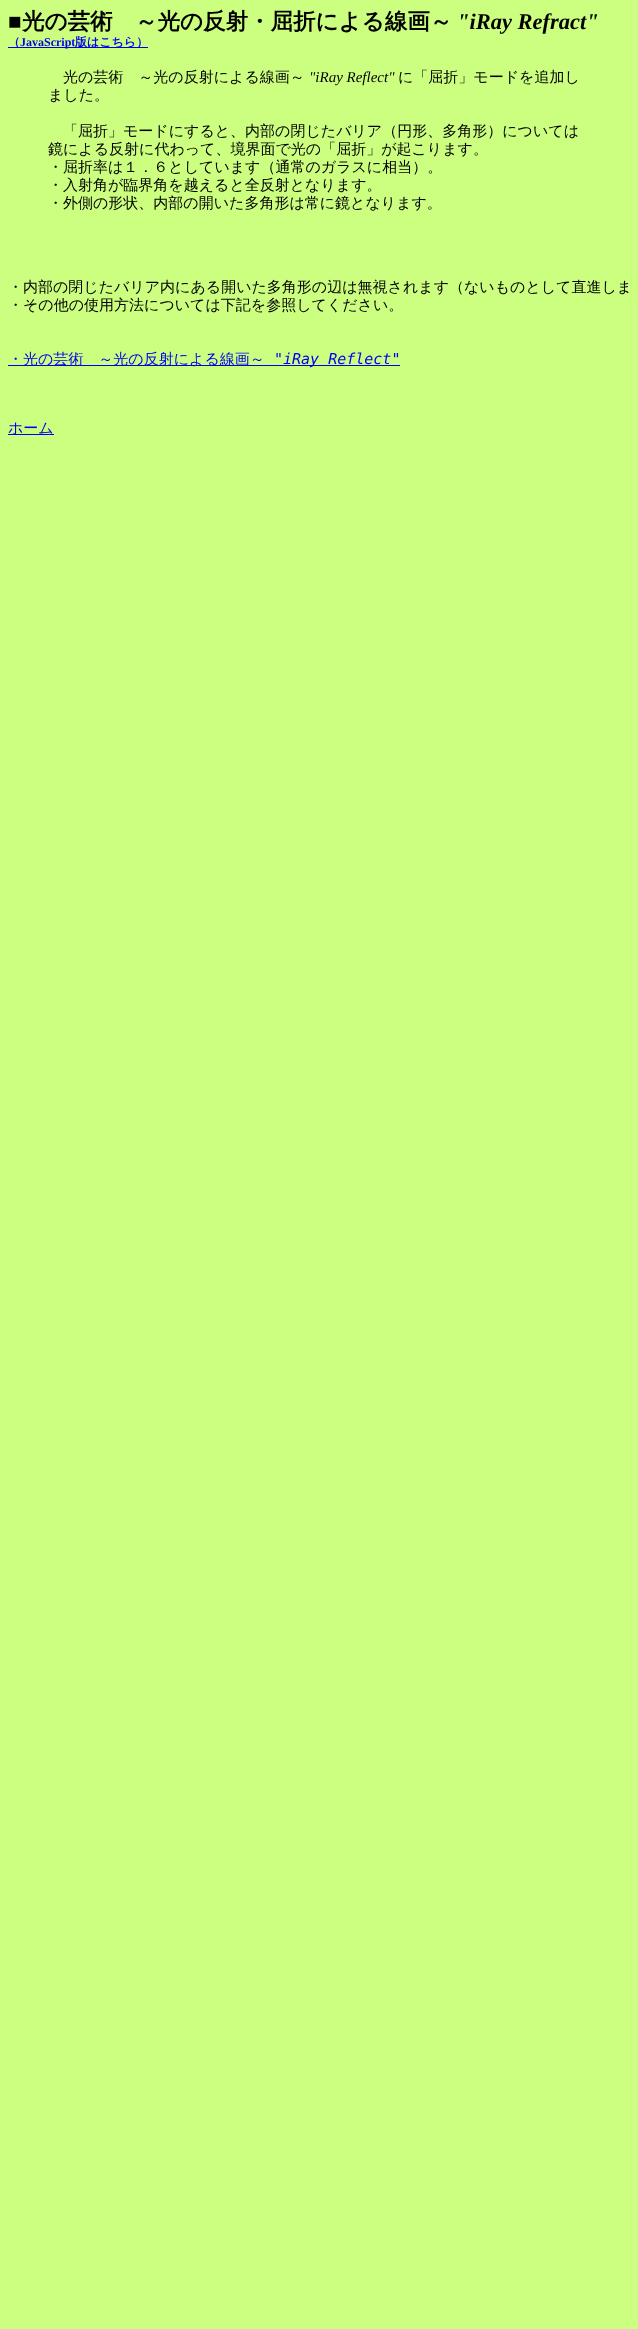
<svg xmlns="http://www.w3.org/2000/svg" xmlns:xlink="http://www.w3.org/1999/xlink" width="638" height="2329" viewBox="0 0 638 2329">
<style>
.cls-1{font:bold 22.5px Liberation Serif;fill:#000000}
.cls-2{font:bold 22.5px WenQuanYi Zen Hei;fill:#000000}
.cls-3{font:italic bold 22.5px Liberation Serif;fill:#000000}
.cls-4{font:bold 12px WenQuanYi Zen Hei;fill:#0000ee}
.cls-5{font:bold 12px Liberation Serif;fill:#0000ee}
.cls-6{font:500 15px WenQuanYi Zen Hei;fill:#000000}
.cls-7{font:italic 15px Liberation Serif;fill:#000000}
.cls-8{font:500 15px WenQuanYi Zen Hei;fill:#0000ee}
.cls-9{font:italic 15px DejaVu Sans Mono;fill:#0000ee}
</style>
<rect width="100%" height="100%" fill="#ccff80"/>
<rect fill="#0000ee" x="8" y="47" width="140" height="1"/>
<rect fill="#0000ee" x="8" y="365" width="392" height="1"/>
<rect fill="#0000ee" x="8" y="434" width="46" height="1"/>
<text class="cls-1" x="8" y="29">■</text>
<text class="cls-2" x="22" y="29">光の芸術　～光の反射・屈折による線画～</text>
<text class="cls-3" x="457" y="29">"iRay Refract"</text>
<text class="cls-4" x="8" y="46">（</text>
<text class="cls-5" x="20" y="46">JavaScript</text>
<text class="cls-4" x="75" y="46">版はこちら）</text>
<text class="cls-6" x="63" y="82">光の芸術　～光の反射による線画～</text>
<text class="cls-7" x="309" y="82">"iRay Reflect"</text>
<text class="cls-6" x="398" y="82">に「屈折」モードを追加し</text>
<text class="cls-6" x="48" y="100">ました。</text>
<text class="cls-6" x="63" y="136">「屈折」モードにすると、内部の閉じたバリア（円形、多角形）については</text>
<text class="cls-6"><tspan x="48" y="154">鏡による反射に代わって、境界面で光の「屈折」が起こります。</tspan><tspan x="48" y="172">・屈折率は１．６としています（通常のガラスに相当）。</tspan><tspan x="48" y="190">・入射角が臨界角を越えると全反射となります。</tspan><tspan x="48" y="208">・外側の形状、内部の開いた多角形は常に鏡となります。</tspan></text>
<text class="cls-6"><tspan x="8" y="292">・内部の閉じたバリア内にある開いた多角形の辺は無視されます（ないものとして直進しま</tspan><tspan x="8" y="310">・その他の使用方法については下記を参照してください。</tspan></text>
<text class="cls-8" x="8" y="364">・光の芸術　～光の反射による線画～</text>
<text class="cls-9" x="274" y="364">"iRay Reflect"</text>
<text class="cls-8" x="8" y="433">ホーム</text>
</svg>
